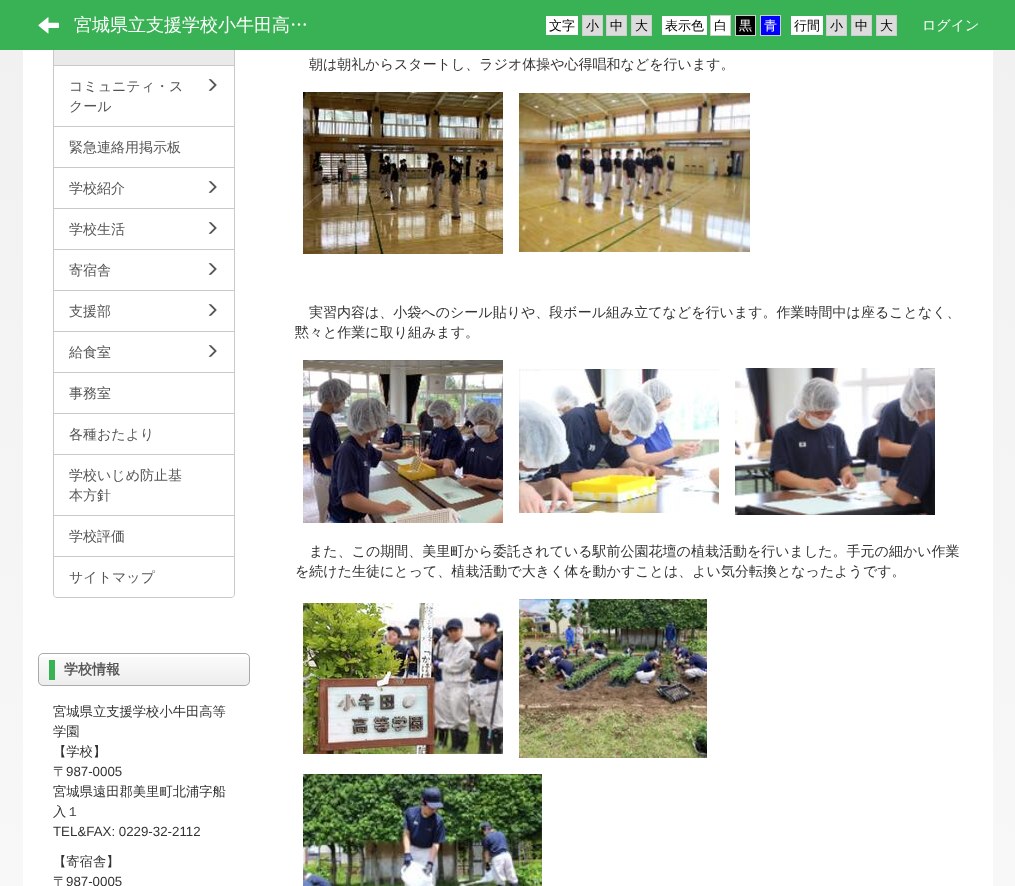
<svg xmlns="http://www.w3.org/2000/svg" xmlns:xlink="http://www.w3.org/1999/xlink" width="1015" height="886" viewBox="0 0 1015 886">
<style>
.cls-1{font:500 18px WenQuanYi Zen Hei;fill:#ffffff}
.cls-2{font:500 13px WenQuanYi Zen Hei;fill:#000000}
.cls-3{font:500 13px WenQuanYi Zen Hei;fill:#ffffff}
.cls-4{font:500 14px WenQuanYi Zen Hei;fill:#ffffff}
.cls-5{font:500 14px WenQuanYi Zen Hei;fill:#555555}
.cls-6{font:bold 14px WenQuanYi Zen Hei;fill:#555555}
.cls-7{font:500 13.3px WenQuanYi Zen Hei;fill:#333333}
.cls-8{font:13.3px Liberation Sans;fill:#333333}
.cls-9{font:500 14px WenQuanYi Zen Hei;fill:#333333}
</style>
<defs>
<linearGradient id="g1" gradientUnits="userSpaceOnUse" x1="508" y1="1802" x2="508" y2="-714"><stop offset="0" stop-color="#ffffff"/><stop offset="1" stop-color="#ebebeb"/></linearGradient>
</defs>
<rect width="100%" height="100%" fill="#ffffff"/>
<rect fill="url(#g1)" x="0" y="50" width="1015" height="836"/>
<rect fill="#ffffff" x="23" y="50" width="970" height="836"/>
<rect fill="#eaeaea" x="54" y="50" width="180" height="15"/>
<rect fill="none" stroke="#c9c9c9" x="53.5" y="65.5" width="181" height="61"/>
<rect fill="none" stroke="#c9c9c9" x="53.5" y="24.5" width="181" height="41"/>
<rect fill="#39b255" x="0" y="0" width="1015" height="50"/>
<image xlink:href="image0.png" x="38" y="17" width="21" height="17"/>
<rect fill="#ffffff" x="546" y="16" width="32" height="19"/>
<rect fill="#dcdcdc" stroke="#cdcdcd" x="582.5" y="15.5" width="20" height="20"/>
<rect fill="#dcdcdc" stroke="#cdcdcd" x="606.5" y="15.5" width="20" height="20"/>
<rect fill="#dcdcdc" stroke="#cdcdcd" x="631.5" y="15.5" width="20" height="20"/>
<rect fill="#ffffff" x="662" y="16" width="45" height="19"/>
<rect fill="#ffffff" stroke="#cdcdcd" x="710.5" y="15.5" width="20" height="20"/>
<rect fill="#000000" stroke="#cdcdcd" x="735.5" y="15.5" width="20" height="20"/>
<rect fill="#0000ff" stroke="#cdcdcd" x="760.5" y="15.5" width="20" height="20"/>
<rect fill="#ffffff" x="791" y="16" width="32" height="19"/>
<rect fill="#dcdcdc" stroke="#cdcdcd" x="826.5" y="15.5" width="20" height="20"/>
<rect fill="#dcdcdc" stroke="#cdcdcd" x="851.5" y="15.5" width="20" height="20"/>
<rect fill="#dcdcdc" stroke="#cdcdcd" x="876.5" y="15.5" width="20" height="20"/>
<image xlink:href="image1.png" x="208" y="79" width="9" height="12"/>
<rect fill="none" stroke="#c9c9c9" x="53.5" y="126.5" width="181" height="41"/>
<rect fill="none" stroke="#c9c9c9" x="53.5" y="167.5" width="181" height="41"/>
<image xlink:href="image1.png" x="208" y="181" width="9" height="12"/>
<rect fill="none" stroke="#c9c9c9" x="53.5" y="208.5" width="181" height="41"/>
<image xlink:href="image1.png" x="208" y="222" width="9" height="12"/>
<rect fill="none" stroke="#c9c9c9" x="53.5" y="249.5" width="181" height="41"/>
<image xlink:href="image1.png" x="208" y="263" width="9" height="12"/>
<rect fill="none" stroke="#c9c9c9" x="53.5" y="290.5" width="181" height="41"/>
<image xlink:href="image1.png" x="208" y="304" width="9" height="12"/>
<rect fill="none" stroke="#c9c9c9" x="53.5" y="331.5" width="181" height="41"/>
<image xlink:href="image1.png" x="208" y="345" width="9" height="12"/>
<rect fill="none" stroke="#c9c9c9" x="53.5" y="372.5" width="181" height="41"/>
<rect fill="none" stroke="#c9c9c9" x="53.5" y="413.5" width="181" height="41"/>
<rect fill="none" stroke="#c9c9c9" x="53.5" y="454.5" width="181" height="61"/>
<rect fill="none" stroke="#c9c9c9" x="53.5" y="515.5" width="181" height="41"/>
<path fill="#ffffff" stroke="#c9c9c9" d="M53.5 556.5H234.5V594C234.5 596 233 597.5 231 597.5H57C55 597.5 53.5 596 53.5 594Z"/>
<image xlink:href="image2.png" x="39" y="657" width="210" height="28"/>
<rect fill="none" stroke="#aaaaaa" x="38.5" y="653.5" width="211" height="32" rx="4.5"/>
<image xlink:href="image3.png" x="303" y="92" width="200" height="162"/>
<image xlink:href="image4.png" x="519" y="93" width="231" height="159"/>
<image xlink:href="image5.png" x="303" y="360" width="200" height="163"/>
<image xlink:href="image6.png" x="519" y="369" width="200" height="144"/>
<image xlink:href="image7.png" x="735" y="368" width="200" height="147"/>
<image xlink:href="image8.png" x="303" y="603" width="200" height="151"/>
<image xlink:href="image9.png" x="519" y="599" width="188" height="159"/>
<image xlink:href="image10.png" x="303" y="774" width="239" height="112"/>
<text class="cls-1" x="74" y="31">宮城県立支援学校小牛田高…</text>
<text class="cls-2" x="549" y="30">文字</text>
<text class="cls-2" x="586" y="30">小</text>
<text class="cls-2" x="610" y="30">中</text>
<text class="cls-2" x="635" y="30">大</text>
<text class="cls-2" x="665" y="30">表示色</text>
<text class="cls-2" x="714" y="30">白</text>
<text class="cls-3" x="739" y="30">黒</text>
<text class="cls-3" x="764" y="30">青</text>
<text class="cls-2" x="794" y="30">行間</text>
<text class="cls-2" x="830" y="30">小</text>
<text class="cls-2" x="855" y="30">中</text>
<text class="cls-2" x="880" y="30">大</text>
<text class="cls-4" x="922" y="30">ログイン</text>
<text class="cls-5"><tspan x="69" y="91">コミュニティ・ス</tspan><tspan x="69" y="111">クール</tspan></text>
<text class="cls-5" x="69" y="152">緊急連絡用掲示板</text>
<text class="cls-5" x="69" y="193">学校紹介</text>
<text class="cls-5" x="69" y="234">学校生活</text>
<text class="cls-5" x="69" y="275">寄宿舎</text>
<text class="cls-5" x="69" y="316">支援部</text>
<text class="cls-5" x="69" y="357">給食室</text>
<text class="cls-5" x="69" y="398">事務室</text>
<text class="cls-5" x="69" y="439">各種おたより</text>
<text class="cls-5"><tspan x="69" y="480">学校いじめ防止基</tspan><tspan x="69" y="500">本方針</tspan></text>
<text class="cls-5" x="69" y="541">学校評価</text>
<text class="cls-5" x="69" y="582">サイトマップ</text>
<text class="cls-6" x="64" y="674">学校情報</text>
<text class="cls-7"><tspan x="53" y="716">宮城県立支援学校小牛田高等</tspan><tspan x="53" y="736">学園</tspan><tspan x="53" y="756">【学校】</tspan><tspan x="53" y="776">〒</tspan></text>
<text class="cls-8" x="66" y="776">987-0005</text>
<text class="cls-7"><tspan x="53" y="796">宮城県遠田郡美里町北浦字船</tspan><tspan x="53" y="816">入１</tspan></text>
<text class="cls-8" x="53" y="836">TEL&amp;FAX: 0229-32-2112</text>
<text class="cls-7"><tspan x="53" y="866">【寄宿舎】</tspan><tspan x="53" y="886">〒</tspan></text>
<text class="cls-8" x="66" y="886">987-0005</text>
<text class="cls-9" x="309" y="69">朝は朝礼からスタートし、ラジオ体操や心得唱和などを行います。</text>
<text class="cls-9" x="309" y="317">実習内容は、小袋へのシール貼りや、段ボール組み立てなどを行います。作業時間中は座ることなく、</text>
<text class="cls-9" x="295" y="337">黙々と作業に取り組みます。</text>
<text class="cls-9" x="309" y="556">また、この期間、美里町から委託されている駅前公園花壇の植栽活動を行いました。手元の細かい作業</text>
<text class="cls-9" x="295" y="576">を続けた生徒にとって、植栽活動で大きく体を動かすことは、よい気分転換となったようです。</text>
</svg>
